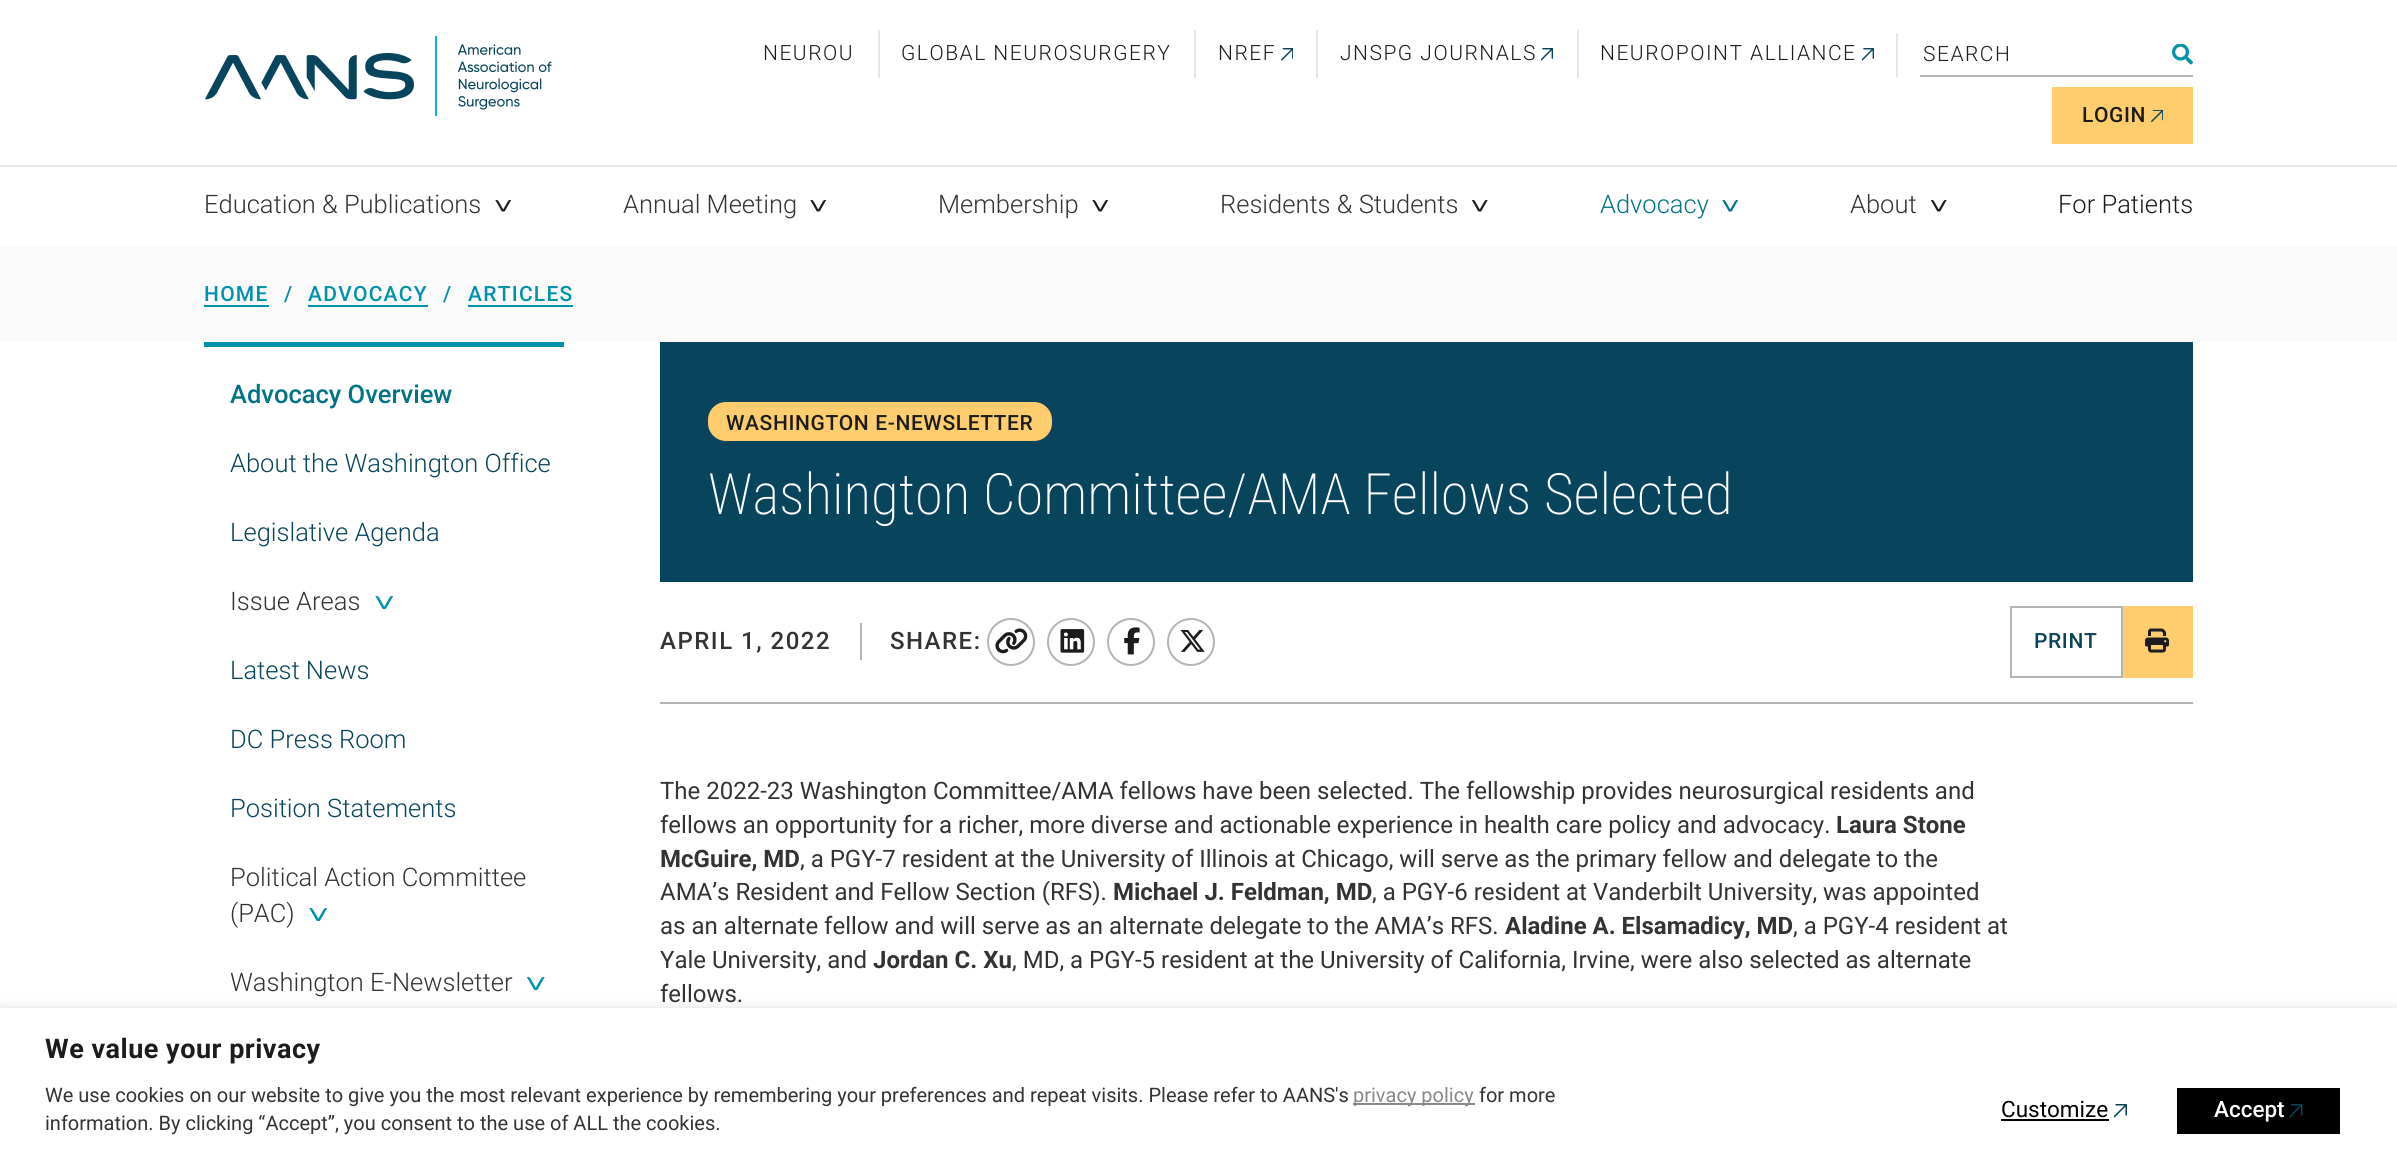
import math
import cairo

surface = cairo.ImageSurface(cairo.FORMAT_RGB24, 2397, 1160)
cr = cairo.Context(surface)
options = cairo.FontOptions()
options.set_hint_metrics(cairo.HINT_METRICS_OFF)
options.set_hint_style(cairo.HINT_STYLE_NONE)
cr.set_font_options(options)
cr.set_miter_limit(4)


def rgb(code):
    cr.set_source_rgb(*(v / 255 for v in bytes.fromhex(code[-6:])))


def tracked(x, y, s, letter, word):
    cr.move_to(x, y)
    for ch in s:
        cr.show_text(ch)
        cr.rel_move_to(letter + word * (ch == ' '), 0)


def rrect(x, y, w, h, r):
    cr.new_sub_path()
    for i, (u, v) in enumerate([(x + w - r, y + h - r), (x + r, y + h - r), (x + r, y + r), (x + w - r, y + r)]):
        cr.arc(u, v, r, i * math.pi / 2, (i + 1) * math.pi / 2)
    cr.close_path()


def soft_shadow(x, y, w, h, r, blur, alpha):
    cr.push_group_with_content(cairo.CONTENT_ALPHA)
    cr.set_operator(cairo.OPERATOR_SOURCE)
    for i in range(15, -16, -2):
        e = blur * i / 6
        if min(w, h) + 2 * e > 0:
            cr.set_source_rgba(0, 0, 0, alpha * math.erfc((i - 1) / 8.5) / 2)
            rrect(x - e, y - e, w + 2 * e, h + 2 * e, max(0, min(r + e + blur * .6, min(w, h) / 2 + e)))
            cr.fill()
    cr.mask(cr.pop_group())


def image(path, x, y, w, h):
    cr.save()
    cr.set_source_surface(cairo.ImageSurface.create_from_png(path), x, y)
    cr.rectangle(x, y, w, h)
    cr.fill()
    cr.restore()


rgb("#ffffff")
cr.paint()
image("img/1.png", 205, 36, 347, 80)
rgb("#e6e6e6")
cr.rectangle(878, 30, 2, 48)
cr.fill()
cr.rectangle(1194, 30, 2, 48)
cr.fill()
image("img/2.png", 1281, 48, 12, 13)
cr.rectangle(1316, 30, 2, 48)
cr.fill()
image("img/3.png", 1541, 48, 13, 13)
cr.rectangle(1577, 30, 2, 48)
cr.fill()
image("img/4.png", 1862, 48, 12, 13)
cr.rectangle(1896, 33, 2, 44)
cr.fill()
rgb("#b4b4b4")
cr.rectangle(1920, 75, 273, 2)
cr.fill()
image("img/5.png", 2172, 44, 21, 21)
rgb("#ffcd6d")
cr.rectangle(2052, 87, 141, 57)
cr.fill()
image("img/6.png", 2151, 110, 12, 12)
image("img/7.png", 495, 200, 17, 12)
image("img/7.png", 810, 200, 17, 12)
image("img/7.png", 1092, 200, 17, 12)
image("img/8.png", 1472, 200, 16, 12)
image("img/9.png", 1722, 200, 17, 12)
image("img/8.png", 1931, 200, 16, 12)
for x, y, w, h, color in [
    (0, 165, 2397, 2, "#e6e6e6"),
    (0, 246, 2397, 96, "#fafafa"),
    (204, 305, 65, 2, "#0092a8"),
    (308, 305, 120, 2, "#0092a8"),
    (468, 305, 105, 2, "#0092a8"),
    (204, 342, 360, 5, "#0092a8"),
]:
    rgb(color)
    cr.rectangle(x, y, w, h)
    cr.fill()
image("img/10.png", 375, 596, 18, 13)
image("img/10.png", 309, 908, 18, 13)
image("img/11.png", 527, 977, 18, 13)
rgb("#08445c")
cr.rectangle(660, 342, 1533, 240)
cr.fill()
rgb("#ffcd6d")
rrect(708, 402, 344, 39, 18)
cr.fill()
rgb("#b4b4b4")
cr.rectangle(660, 702, 1533, 2)
cr.fill()
cr.rectangle(860, 623, 2, 37)
cr.fill()
cr.arc(1011, 642, 23, 0, 2 * math.pi)
cr.stroke()
image("img/12.png", 995, 628, 33, 26)
cr.arc(1071, 642, 23, 0, 2 * math.pi)
cr.stroke()
image("img/13.png", 1060, 629, 25, 24)
cr.arc(1131, 642, 23, 0, 2 * math.pi)
cr.stroke()
image("img/14.png", 1124, 627, 16, 28)
cr.arc(1191, 642, 23, 0, 2 * math.pi)
cr.stroke()
image("img/15.png", 1180, 629, 25, 23)
cr.rectangle(2011, 607, 181, 70)
cr.stroke()
rgb("#ffcd6d")
cr.rectangle(2123, 606, 70, 72)
cr.fill()
rgb("#b4b4b4")
cr.rectangle(2121, 606, 2, 72)
cr.fill()
image("img/16.png", 2145, 628, 24, 25)
rgb("#000000")
soft_shadow(0, 1016, 2397, 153, 0, 7.5, 0.5)
for x, y, w, h, color in [
    (0, 1008, 2397, 152, "#ffffff"),
    (1353, 1103, 122, 2, "#898888"),
    (2001, 1119, 108, 2, "#000000"),
]:
    rgb(color)
    cr.rectangle(x, y, w, h)
    cr.fill()
image("img/17.png", 2114, 1104, 13, 14)
cr.rectangle(2177, 1088, 163, 46)
cr.fill()
image("img/18.png", 2289, 1104, 14, 14)
cr.select_font_face("Roboto Light")
cr.set_font_size(21)
rgb("#1c1c1c")
for x, y, s in [
    (763, 60, "NEUROU"),
    (901, 60, "GLOBAL NEUROSURGERY"),
    (1218, 60, "NREF"),
    (1340, 60, "JNSPG JOURNALS"),
    (1600, 60, "NEUROPOINT ALLIANCE"),
    (1923, 61, "SEARCH"),
]:
    tracked(x, y, s, 1.5, 0)
cr.select_font_face("Roboto Medium")
tracked(2082, 122, "LOGIN", 0.6, 0)
cr.select_font_face("Roboto Light")
cr.set_font_size(25.5)
rgb("#333333")
for x, y, s in [
    (204, 213, "Education & Publications"),
    (623, 213, "Annual Meeting"),
    (938, 213, "Membership"),
    (1220, 213, "Residents & Students"),
]:
    cr.move_to(x, y)
    cr.show_text(s)
rgb("#007385")
cr.move_to(1600, 213)
cr.show_text("Advocacy")
rgb("#333333")
cr.move_to(1850, 213)
cr.show_text("About")
rgb("#1c1c1c")
cr.move_to(2058, 213)
cr.show_text("For Patients")
cr.select_font_face("Roboto Medium")
cr.set_font_size(21)
rgb("#0092a8")
for x, y, s in [
    (204, 301, "HOME"),
    (284, 301, "/"),
    (308, 301, "ADVOCACY"),
    (443, 301, "/"),
    (468, 301, "ARTICLES"),
]:
    tracked(x, y, s, 1.25, 0)
cr.set_font_size(25.5)
rgb("#007385")
cr.move_to(230, 403)
cr.show_text("Advocacy Overview")
cr.select_font_face("Roboto Light")
rgb("#08445c")
cr.move_to(230, 472)
cr.show_text("About the Washington Office")
cr.move_to(230, 541)
cr.show_text("Legislative Agenda")
rgb("#333333")
cr.move_to(230, 610)
cr.show_text("Issue Areas")
rgb("#08445c")
for x, y, s in [
    (230, 679, "Latest News"),
    (230, 748, "DC Press Room"),
    (230, 817, "Position Statements"),
]:
    cr.move_to(x, y)
    cr.show_text(s)
rgb("#333333")
for x, y, s in [
    (230, 886, "Political Action Committee"),
    (230, 922, "(PAC)"),
    (230, 991, "Washington E-Newsletter"),
]:
    cr.move_to(x, y)
    cr.show_text(s)
cr.select_font_face("Roboto Medium")
cr.set_font_size(21)
rgb("#1c1c1c")
tracked(726, 430, "WASHINGTON E-NEWSLETTER", 0.6, 0)
cr.select_font_face("Roboto Condensed ExtraLight")
cr.set_font_size(57)
rgb("#ffffff")
cr.move_to(708, 514)
cr.show_text("Washington Committee/AMA Fellows Selected")
cr.select_font_face("Roboto Medium")
cr.set_font_size(24)
rgb("#333333")
tracked(660, 649, "APRIL 1, 2022", 1.5, 0)
tracked(890, 649, "SHARE:", 1.5, 0)
cr.set_font_size(21)
rgb("#08445c")
tracked(2034, 648, "PRINT", 0.6, 0)
cr.select_font_face("Roboto")
cr.set_font_size(24)
rgb("#333333")
cr.move_to(660, 799)
cr.show_text("The 2022-23 Washington Committee/AMA fellows have been selected. The fellowship provides neurosurgical residents and")
cr.move_to(660, 833)
cr.show_text("fellows an opportunity for a richer, more diverse and actionable experience in health care policy and advocacy.")
cr.select_font_face("Roboto", cairo.FONT_SLANT_NORMAL, cairo.FONT_WEIGHT_BOLD)
cr.move_to(1836, 833)
cr.show_text("Laura Stone")
cr.move_to(660, 867)
cr.show_text("McGuire, MD")
cr.select_font_face("Roboto")
cr.move_to(800, 867)
cr.show_text(", a PGY-7 resident at the University of Illinois at Chicago, will serve as the primary fellow and delegate to the")
cr.move_to(660, 900)
cr.show_text("AMA’s Resident and Fellow Section (RFS).")
cr.select_font_face("Roboto", cairo.FONT_SLANT_NORMAL, cairo.FONT_WEIGHT_BOLD)
cr.move_to(1113, 900)
cr.show_text("Michael J. Feldman, MD")
cr.select_font_face("Roboto")
cr.move_to(1372, 900)
cr.show_text(", a PGY-6 resident at Vanderbilt University, was appointed")
cr.move_to(660, 934)
cr.show_text("as an alternate fellow and will serve as an alternate delegate to the AMA’s RFS.")
cr.select_font_face("Roboto", cairo.FONT_SLANT_NORMAL, cairo.FONT_WEIGHT_BOLD)
cr.move_to(1505, 934)
cr.show_text("Aladine A. Elsamadicy, MD")
cr.select_font_face("Roboto")
cr.move_to(1793, 934)
cr.show_text(", a PGY-4 resident at")
cr.move_to(660, 968)
cr.show_text("Yale University, and")
cr.select_font_face("Roboto", cairo.FONT_SLANT_NORMAL, cairo.FONT_WEIGHT_BOLD)
cr.move_to(873, 968)
cr.show_text("Jordan C. Xu")
cr.select_font_face("Roboto")
cr.move_to(1012, 968)
cr.show_text(", MD, a PGY-5 resident at the University of California, Irvine, were also selected as alternate")
cr.move_to(660, 1002)
cr.show_text("fellows.")
cr.select_font_face("Roboto", cairo.FONT_SLANT_NORMAL, cairo.FONT_WEIGHT_BOLD)
cr.set_font_size(27)
rgb("#1c1c1c")
tracked(45, 1058, "We value your privacy", 0.5, 0)
cr.select_font_face("Roboto")
cr.set_font_size(20)
rgb("#333333")
cr.move_to(45, 1102)
cr.show_text("We use cookies on our website to give you the most relevant experience by remembering your preferences and repeat visits. Please refer to AANS's")
rgb("#898888")
cr.move_to(1353, 1102)
cr.show_text("privacy policy")
rgb("#333333")
cr.move_to(1479, 1102)
cr.show_text("for more")
cr.move_to(45, 1130)
cr.show_text("information. By clicking “Accept”, you consent to the use of ALL the cookies.")
cr.set_font_size(22.5)
rgb("#000000")
cr.move_to(2001, 1117)
cr.show_text("Customize")
cr.select_font_face("Roboto Medium")
rgb("#ffffff")
cr.move_to(2214, 1117)
cr.show_text("Accept")
surface.write_to_png("page.png")
